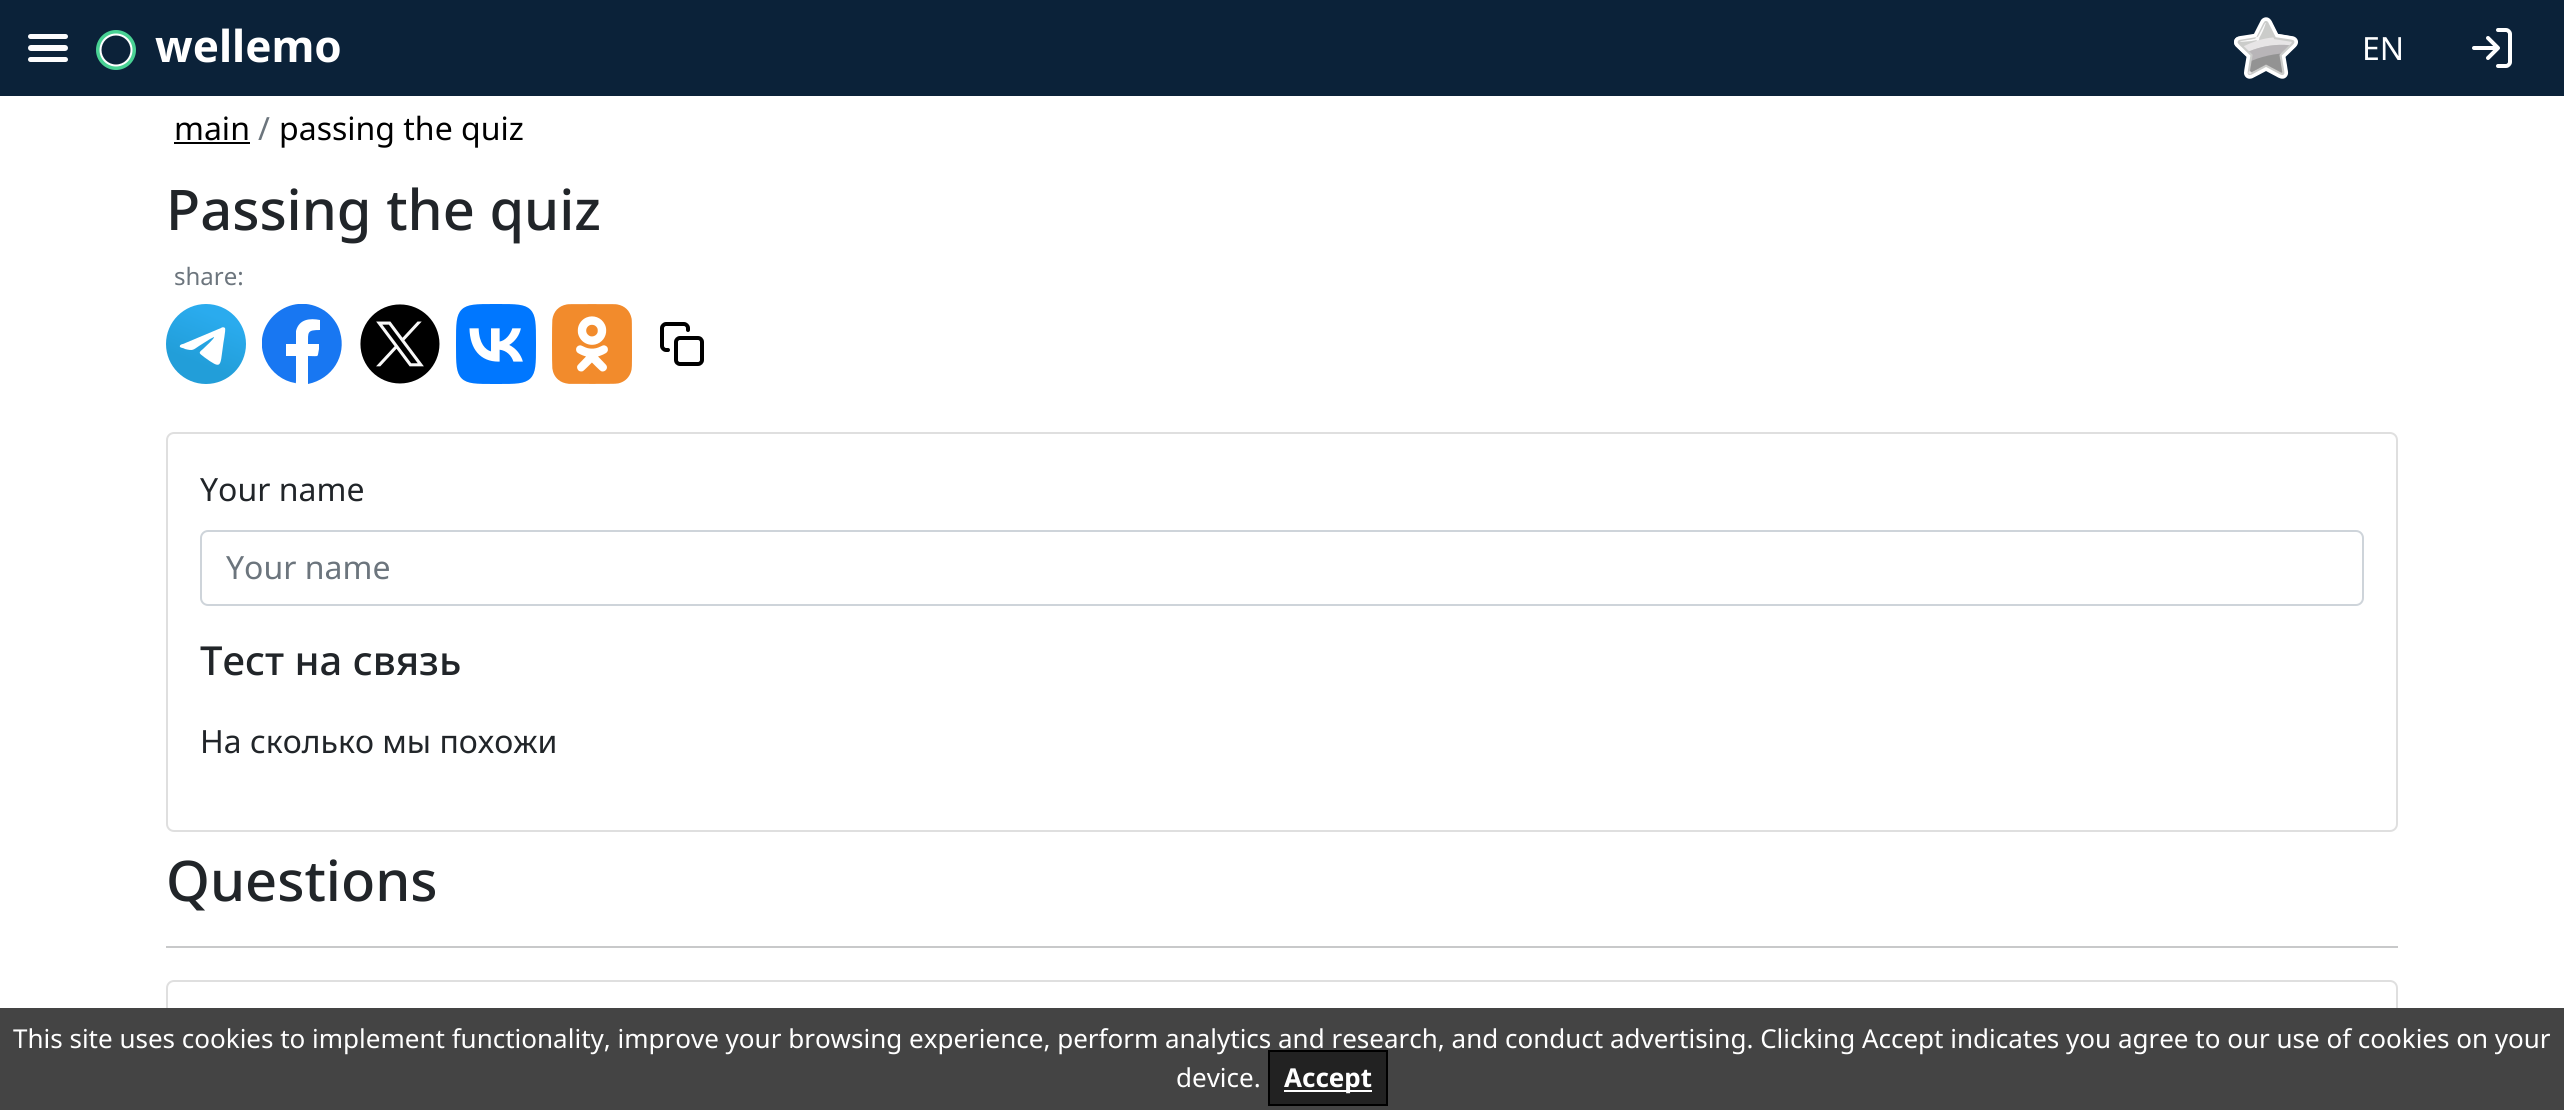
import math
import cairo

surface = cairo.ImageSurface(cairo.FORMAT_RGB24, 2564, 1110)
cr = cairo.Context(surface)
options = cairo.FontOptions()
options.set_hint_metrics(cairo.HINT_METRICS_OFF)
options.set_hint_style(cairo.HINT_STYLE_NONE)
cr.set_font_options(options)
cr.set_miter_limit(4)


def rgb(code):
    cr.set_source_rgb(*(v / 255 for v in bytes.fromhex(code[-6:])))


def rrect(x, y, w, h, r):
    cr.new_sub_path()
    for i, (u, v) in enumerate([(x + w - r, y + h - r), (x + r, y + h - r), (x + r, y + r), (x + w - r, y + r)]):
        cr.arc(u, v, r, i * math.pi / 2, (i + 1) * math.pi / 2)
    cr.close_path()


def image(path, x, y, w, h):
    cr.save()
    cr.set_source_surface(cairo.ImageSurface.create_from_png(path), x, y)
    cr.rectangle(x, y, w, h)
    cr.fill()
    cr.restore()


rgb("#ffffff")
cr.paint()
rgb("#0b2239")
cr.rectangle(0, 0, 2564, 96)
cr.fill()
rgb("#fcfcfd")
rrect(28, 34, 40, 5, 2.5)
cr.fill()
rrect(28, 45, 40, 6, 3)
cr.fill()
rrect(28, 57, 40, 5, 2.5)
cr.fill()
rgb("#49d294")
cr.arc(116, 50, 20, 0, 2 * math.pi)
cr.fill()
rgb("#ffffff")
cr.arc(116, 50, 16.5, 0, 2 * math.pi)
cr.fill()
rgb("#0c2239")
cr.arc(116, 50, 14.5, 0, 2 * math.pi)
cr.fill()
image("img/1.png", 2234, 17, 64, 62)
cr.new_path()
cr.move_to(2498, 30)
cr.line_to(2506, 30)
cr.curve_to(2508, 30, 2510, 32, 2510, 34)
cr.line_to(2510, 62)
cr.curve_to(2510, 64, 2508, 66, 2506, 66)
cr.line_to(2498, 66)
cr.move_to(2488, 58)
cr.line_to(2498, 48)
cr.line_to(2488, 38)
cr.move_to(2498, 48)
cr.line_to(2474, 48)
rgb("#ffffff")
cr.set_line_width(4)
cr.set_line_cap(cairo.LINE_CAP_ROUND)
cr.set_line_join(cairo.LINE_JOIN_ROUND)
cr.stroke()
rgb("#000000")
cr.rectangle(174, 142, 76, 2)
cr.fill()
gradient = cairo.LinearGradient(219, 317, 200, 364)
gradient.add_color_stop_rgba(0, 0.165, 0.671, 0.933, 1)
gradient.add_color_stop_rgba(1, 0.133, 0.62, 0.851, 1)
cr.set_source(gradient)
cr.arc(206, 344, 40, 0, 2 * math.pi)
cr.fill()
cr.save()
cr.rectangle(262, 304, 80, 80)
cr.clip()
rgb("#1877f2")
cr.new_path()
cr.move_to(295, 383)
cr.curve_to(283, 381, 272, 373, 266, 361)
cr.curve_to(248, 324, 291, 288, 325, 311)
cr.curve_to(332, 316, 338, 324, 340, 332)
cr.curve_to(347, 356, 332, 379, 308, 384)
cr.line_to(308, 356)
cr.curve_to(320, 356, 317, 358, 319, 349)
cr.line_to(319, 344)
cr.line_to(308, 344)
cr.curve_to(308, 332, 307, 330, 320, 330)
cr.line_to(320, 320)
cr.curve_to(310, 318, 299, 319, 296, 331)
cr.line_to(296, 344)
cr.line_to(286, 344)
cr.line_to(286, 356)
cr.line_to(296, 356)
cr.line_to(296, 381)
cr.curve_to(296, 382, 296, 384, 295, 383)
cr.close_path()
cr.fill()
cr.restore()
image("img/2.png", 360, 304, 80, 80)
image("img/3.png", 456, 304, 80, 80)
image("img/4.png", 552, 304, 80, 80)
rrect(676, 338, 26, 26, 4)
rgb("#000000")
cr.set_line_cap(cairo.LINE_CAP_BUTT)
cr.set_line_join(cairo.LINE_JOIN_MITER)
cr.stroke()
cr.new_path()
cr.move_to(668, 350)
cr.line_to(666, 350)
cr.curve_to(664, 350, 662, 348, 662, 346)
cr.line_to(662, 328)
cr.curve_to(662, 326, 664, 324, 666, 324)
cr.line_to(684, 324)
cr.curve_to(686, 324, 688, 326, 688, 328)
cr.line_to(688, 330)
cr.set_line_cap(cairo.LINE_CAP_ROUND)
cr.set_line_join(cairo.LINE_JOIN_ROUND)
cr.stroke()
rgb("#ffffff")
cr.new_path()
cr.move_to(221, 328)
cr.curve_to(222, 327, 224, 327, 225, 328)
cr.curve_to(226, 330, 223, 344, 223, 346)
cr.curve_to(220, 367, 222, 370, 204, 357)
cr.curve_to(199, 353, 198, 353, 203, 349)
cr.curve_to(205, 347, 215, 338, 214, 337)
cr.line_to(210, 339)
cr.line_to(199, 346)
cr.curve_to(193, 350, 193, 351, 185, 349)
cr.curve_to(184, 348, 181, 348, 180, 347)
cr.curve_to(179, 345, 182, 344, 183, 344)
cr.close_path()
cr.fill()
rrect(167, 433, 2230, 398, 7)
rgb("#dfdfdf")
cr.set_line_width(2)
cr.set_line_cap(cairo.LINE_CAP_BUTT)
cr.set_line_join(cairo.LINE_JOIN_MITER)
cr.stroke()
rrect(201, 531, 2162, 74, 7)
rgb("#ced4da")
cr.stroke()
rgb("#c8c9ca")
cr.rectangle(166, 946, 2232, 2)
cr.fill()
rrect(167, 981, 2230, 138, 7)
rgb("#dfdfdf")
cr.stroke()
rgb("#444444")
cr.rectangle(0, 1008, 2564, 102)
cr.fill()
cr.select_font_face("Noto Sans", cairo.FONT_SLANT_NORMAL, cairo.FONT_WEIGHT_BOLD)
cr.set_font_size(44)
rgb("#ffffff")
cr.move_to(155, 62)
cr.show_text("wellemo")
cr.select_font_face("Noto Sans")
cr.set_font_size(32)
cr.move_to(2362, 60)
cr.show_text("EN")
rgb("#000000")
cr.move_to(174, 140)
cr.show_text("main")
rgb("#6c757d")
cr.move_to(258, 140)
cr.show_text("/")
rgb("#000000")
cr.move_to(279, 140)
cr.show_text("passing the quiz")
cr.select_font_face("Noto Sans Medium")
cr.set_font_size(56)
rgb("#212529")
cr.move_to(166, 230)
cr.show_text("Passing the quiz")
cr.select_font_face("Noto Sans")
cr.set_font_size(24)
rgb("#6c757d")
cr.move_to(174, 285)
cr.show_text("share:")
cr.set_font_size(32)
rgb("#212529")
cr.move_to(200, 501)
cr.show_text("Your name")
rgb("#6c757d")
cr.move_to(226, 579)
cr.show_text("Your name")
cr.select_font_face("Noto Sans Medium")
cr.set_font_size(40)
rgb("#212529")
cr.move_to(200, 675)
cr.show_text("Тест на связь")
cr.select_font_face("Noto Sans")
cr.set_font_size(32)
cr.move_to(200, 753)
cr.show_text("На сколько мы похожи")
cr.select_font_face("Noto Sans Medium")
cr.set_font_size(56)
cr.move_to(166, 901)
cr.show_text("Questions")
cr.select_font_face("Noto Sans")
cr.set_font_size(26)
rgb("#ffffff")
cr.move_to(13, 1048)
cr.show_text("This site uses cookies to implement functionality, improve your browsing experience, perform analytics and research, and conduct advertising. Clicking Accept indicates you agree to our use of cookies on your")
cr.move_to(1176, 1087)
cr.show_text("device.")
rgb("#222222")
cr.rectangle(1269, 1051, 118, 54)
cr.fill_preserve()
rgb("#000000")
cr.stroke()
rgb("#ffffff")
cr.rectangle(1284, 1090, 88, 2)
cr.fill()
cr.select_font_face("Noto Sans", cairo.FONT_SLANT_NORMAL, cairo.FONT_WEIGHT_BOLD)
cr.move_to(1284, 1087)
cr.show_text("Accept")
surface.write_to_png("page.png")
